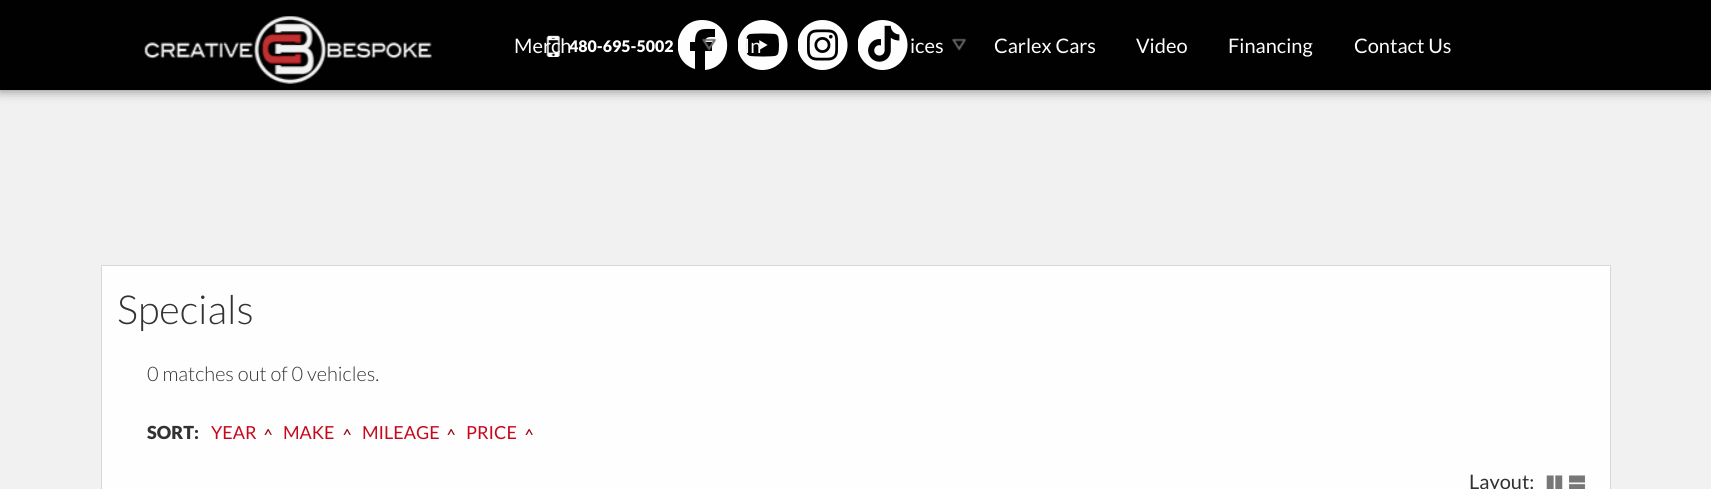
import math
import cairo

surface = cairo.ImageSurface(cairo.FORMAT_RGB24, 1711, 489)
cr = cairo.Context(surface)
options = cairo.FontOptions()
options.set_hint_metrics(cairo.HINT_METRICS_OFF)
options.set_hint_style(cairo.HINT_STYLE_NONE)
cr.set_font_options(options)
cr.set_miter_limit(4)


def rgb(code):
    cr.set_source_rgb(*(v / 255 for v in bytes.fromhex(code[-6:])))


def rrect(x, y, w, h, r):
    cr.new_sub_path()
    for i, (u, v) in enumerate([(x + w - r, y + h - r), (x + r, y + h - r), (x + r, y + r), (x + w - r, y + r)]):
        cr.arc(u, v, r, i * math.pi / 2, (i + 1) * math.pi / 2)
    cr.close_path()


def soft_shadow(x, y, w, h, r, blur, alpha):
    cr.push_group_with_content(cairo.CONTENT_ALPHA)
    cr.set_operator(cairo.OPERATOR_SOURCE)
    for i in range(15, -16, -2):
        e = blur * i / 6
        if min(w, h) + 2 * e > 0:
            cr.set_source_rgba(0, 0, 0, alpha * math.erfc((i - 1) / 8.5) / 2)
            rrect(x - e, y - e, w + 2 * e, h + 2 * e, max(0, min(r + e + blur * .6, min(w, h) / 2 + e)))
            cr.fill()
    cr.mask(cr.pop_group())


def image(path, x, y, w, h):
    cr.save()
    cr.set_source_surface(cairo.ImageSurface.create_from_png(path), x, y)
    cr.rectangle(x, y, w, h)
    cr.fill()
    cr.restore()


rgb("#f1f1f1")
cr.paint()
rgb("#000000")
soft_shadow(0, 0, 1711, 90, 0, 6, 0.5)
rgb("#010101")
cr.rectangle(0, 0, 1711, 90)
cr.fill()
cr.save()
cr.rectangle(678, 20, 50, 50)
cr.clip()
rgb("#fefefe")
cr.new_path()
cr.move_to(702, 20)
cr.curve_to(674, 20, 668, 61, 695, 69)
cr.line_to(695, 51)
cr.line_to(690, 51)
cr.line_to(690, 42)
cr.line_to(695, 42)
cr.curve_to(695, 27, 703, 29, 715, 29)
cr.line_to(715, 37)
cr.curve_to(711, 37, 705, 36, 705, 42)
cr.line_to(712, 42)
cr.line_to(712, 51)
cr.line_to(705, 51)
cr.line_to(705, 70)
cr.curve_to(736, 67, 734, 20, 702, 20)
cr.close_path()
cr.fill()
cr.restore()
image("img/1.png", 702, 38, 15, 13)
image("img/2.png", 952, 38, 15, 13)
image("img/3.png", 144, 16, 288, 68)
image("img/4.png", 546, 35, 15, 22)
image("img/5.png", 738, 20, 50, 50)
image("img/6.png", 798, 20, 50, 50)
image("img/7.png", 858, 20, 50, 50)
rgb("#fefefe")
cr.rectangle(101.5, 265.5, 1509, 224)
cr.fill_preserve()
rgb("#d8d8d8")
cr.set_line_width(1)
cr.stroke()
image("img/8.png", 1546, 475, 17, 14)
image("img/9.png", 1569, 475, 17, 14)
cr.select_font_face("Lato")
cr.set_font_size(20)
rgb("#fefefe")
for x, y, s in [
    (744, 53, "In"),
    (910, 53, "ices"),
    (994, 53, "Carlex Cars"),
    (1136, 53, "Video"),
    (1228, 53, "Financing"),
    (1354, 53, "Contact Us"),
]:
    cr.move_to(x, y)
    cr.show_text(s)
cr.select_font_face("Lato Black")
cr.set_font_size(16)
cr.move_to(569, 52)
cr.show_text("480-695-5002")
cr.select_font_face("Lato")
cr.set_font_size(20)
cr.move_to(514, 53)
cr.show_text("Merch")
cr.select_font_face("Lato Light")
cr.set_font_size(40)
rgb("#323232")
cr.move_to(117, 324)
cr.show_text("Specials")
cr.set_font_size(20)
cr.move_to(147, 381)
cr.show_text("0 matches out of 0 vehicles.")
cr.select_font_face("Lato Black")
cr.set_font_size(18)
cr.move_to(147, 439)
cr.show_text("SORT:")
cr.select_font_face("Lato")
rgb("#c7081b")
cr.move_to(211, 439)
cr.show_text("YEAR")
rgb("#960614")
cr.move_to(263, 442)
cr.show_text("^")
rgb("#c7081b")
cr.move_to(283, 439)
cr.show_text("MAKE")
rgb("#960614")
cr.move_to(342, 442)
cr.show_text("^")
rgb("#c7081b")
cr.move_to(362, 439)
cr.show_text("MILEAGE")
rgb("#960614")
cr.move_to(446, 442)
cr.show_text("^")
rgb("#c7081b")
cr.move_to(466, 439)
cr.show_text("PRICE")
rgb("#960614")
cr.move_to(524, 442)
cr.show_text("^")
cr.set_font_size(20)
rgb("#323232")
cr.move_to(1469, 489)
cr.show_text("Layout:")
surface.write_to_png("page.png")
